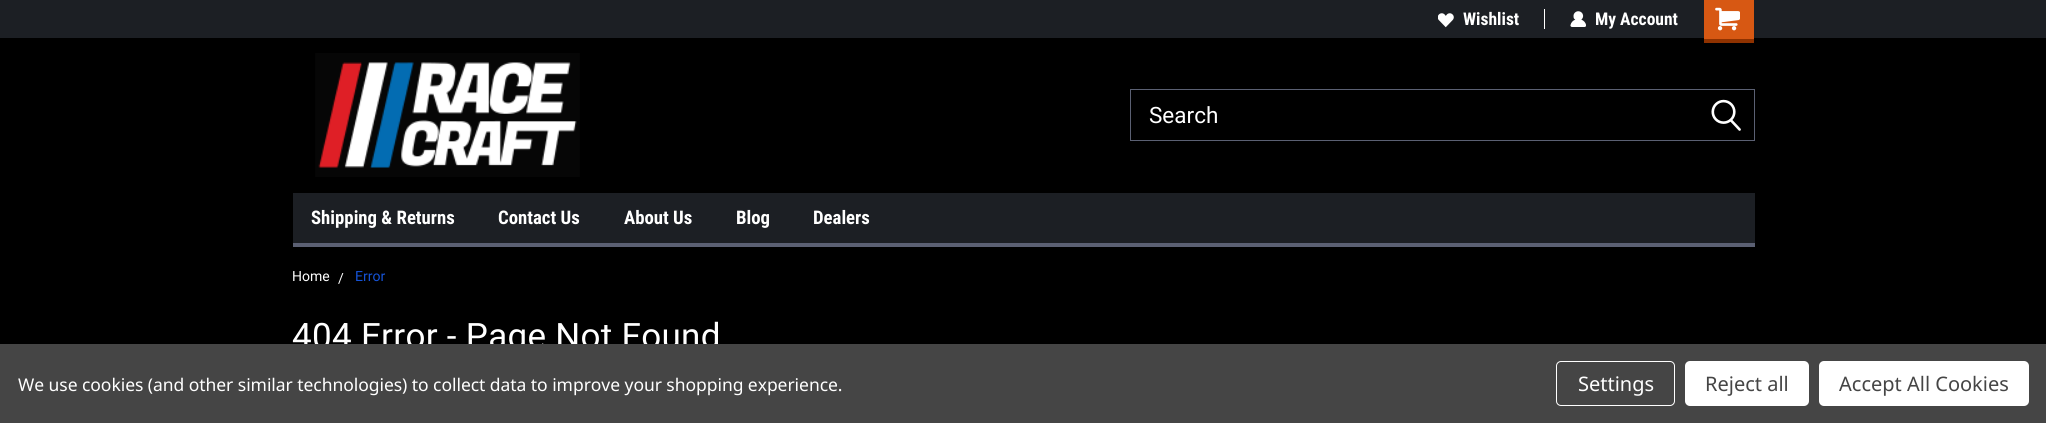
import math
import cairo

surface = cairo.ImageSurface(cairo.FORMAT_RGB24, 2046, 423)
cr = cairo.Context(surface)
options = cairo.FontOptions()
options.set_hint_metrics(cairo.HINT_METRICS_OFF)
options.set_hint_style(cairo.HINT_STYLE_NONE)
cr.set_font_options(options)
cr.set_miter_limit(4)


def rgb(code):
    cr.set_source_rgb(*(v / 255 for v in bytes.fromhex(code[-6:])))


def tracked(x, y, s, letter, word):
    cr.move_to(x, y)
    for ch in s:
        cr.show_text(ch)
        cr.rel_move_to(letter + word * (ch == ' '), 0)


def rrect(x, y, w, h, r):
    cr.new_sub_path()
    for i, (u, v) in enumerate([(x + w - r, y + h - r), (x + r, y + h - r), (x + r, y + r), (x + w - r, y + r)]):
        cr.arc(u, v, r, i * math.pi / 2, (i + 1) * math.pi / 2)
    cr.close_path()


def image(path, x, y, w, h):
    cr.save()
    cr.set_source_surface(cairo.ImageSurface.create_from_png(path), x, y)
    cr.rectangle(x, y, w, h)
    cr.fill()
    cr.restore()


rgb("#000000")
cr.paint()
rgb("#1c1f24")
cr.rectangle(0, 0, 2046, 38)
cr.fill()
rgb("#ffffff")
cr.rectangle(1544, 9, 1, 20)
cr.fill()
image("img/1.png", 1438, 13, 16, 15)
image("img/2.png", 1570, 11, 16, 16)
rgb("#d75813")
cr.rectangle(1704, 0, 50, 39)
cr.fill()
rgb("#8f3200")
cr.rectangle(1704, 39, 50, 4)
cr.fill()
image("img/3.png", 1715, 7, 25, 24)
image("img/4.png", 315, 53, 265, 124)
cr.rectangle(1130.5, 89.5, 624, 51)
rgb("#5b6073")
cr.set_line_width(1)
cr.stroke()
image("img/5.png", 1711, 99, 30, 32)
rgb("#1c1f24")
cr.rectangle(293, 193, 1462, 50)
cr.fill()
rgb("#5b6073")
cr.rectangle(293, 243, 1462, 4)
cr.fill()
cr.select_font_face("Roboto Condensed", cairo.FONT_SLANT_NORMAL, cairo.FONT_WEIGHT_BOLD)
cr.set_font_size(17.5)
rgb("#ffffff")
cr.move_to(1463, 25)
cr.show_text("Wishlist")
cr.move_to(1595, 25)
cr.show_text("My Account")
cr.select_font_face("Roboto")
cr.set_font_size(22.5)
cr.move_to(1149, 123)
cr.show_text("Search")
cr.select_font_face("Roboto Condensed", cairo.FONT_SLANT_NORMAL, cairo.FONT_WEIGHT_BOLD)
cr.set_font_size(18.75)
for x, y, s in [
    (311, 224, "Shipping & Returns"),
    (498, 224, "Contact Us"),
    (624, 224, "About Us"),
    (736, 224, "Blog"),
    (813, 224, "Dealers"),
]:
    cr.move_to(x, y)
    cr.show_text(s)
cr.select_font_face("Roboto")
cr.set_font_size(14)
cr.move_to(292, 281)
cr.show_text("Home")
cr.move_to(338, 283)
cr.show_text("/")
rgb("#1553d7")
cr.move_to(355, 281)
cr.show_text("Error")
cr.set_font_size(35)
rgb("#ffffff")
tracked(292, 348, "404 Error - Page Not Found", 0.3, 0)
rgb("#454545")
cr.rectangle(0, 344, 2046, 79)
cr.fill()
cr.select_font_face("Noto Sans")
cr.set_font_size(17.5)
rgb("#ffffff")
tracked(18, 391, "We use cookies (and other similar technologies) to collect data to improve your shopping experience.", -0.05, 0)
rrect(1556.5, 361.5, 118, 44, 4.5)
cr.stroke()
cr.set_font_size(20)
cr.move_to(1578, 391)
cr.show_text("Settings")
rrect(1685, 361, 124, 45, 5)
cr.fill()
rgb("#454545")
cr.move_to(1705, 391)
cr.show_text("Reject all")
rgb("#ffffff")
rrect(1819, 361, 210, 45, 5)
cr.fill()
rgb("#454545")
cr.move_to(1839, 391)
cr.show_text("Accept All Cookies")
surface.write_to_png("page.png")
